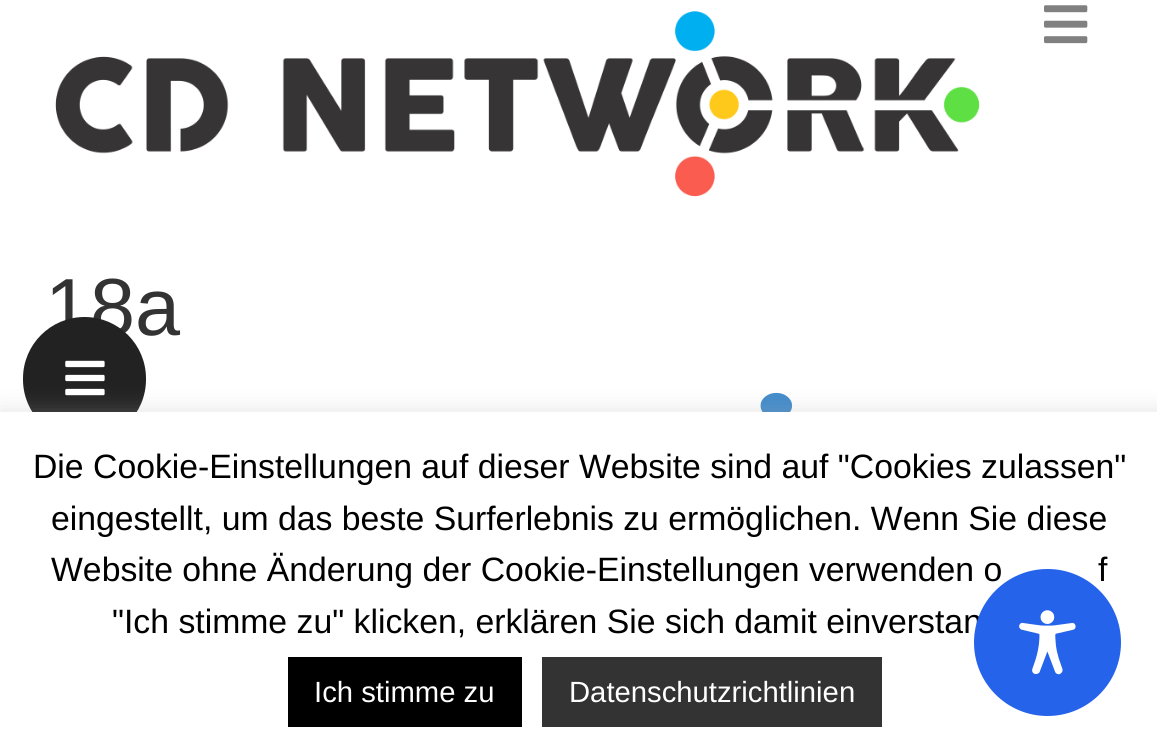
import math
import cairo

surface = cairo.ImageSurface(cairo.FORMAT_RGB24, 1157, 753)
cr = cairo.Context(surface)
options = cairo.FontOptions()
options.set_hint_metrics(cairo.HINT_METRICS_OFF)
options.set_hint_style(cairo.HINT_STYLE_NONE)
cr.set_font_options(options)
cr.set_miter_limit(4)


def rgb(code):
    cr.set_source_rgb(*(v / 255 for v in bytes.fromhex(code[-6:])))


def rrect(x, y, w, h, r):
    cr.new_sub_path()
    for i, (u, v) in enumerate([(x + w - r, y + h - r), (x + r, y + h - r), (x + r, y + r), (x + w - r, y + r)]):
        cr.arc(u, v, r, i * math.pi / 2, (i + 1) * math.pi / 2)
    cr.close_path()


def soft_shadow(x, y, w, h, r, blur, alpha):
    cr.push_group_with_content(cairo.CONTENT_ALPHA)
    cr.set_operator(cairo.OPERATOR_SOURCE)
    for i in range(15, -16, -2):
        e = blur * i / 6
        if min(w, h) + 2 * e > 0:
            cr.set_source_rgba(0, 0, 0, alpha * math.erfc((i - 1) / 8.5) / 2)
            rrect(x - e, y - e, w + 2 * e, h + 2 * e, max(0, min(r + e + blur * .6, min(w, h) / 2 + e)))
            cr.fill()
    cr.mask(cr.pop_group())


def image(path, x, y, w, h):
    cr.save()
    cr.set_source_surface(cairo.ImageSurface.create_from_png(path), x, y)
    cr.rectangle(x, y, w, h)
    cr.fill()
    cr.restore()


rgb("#ffffff")
cr.paint()
image("img/1.png", 55, 11, 925, 186)
image("img/2.png", 1044, 5, 44, 39)
image("img/3.png", 760, 392, 33, 20)
cr.select_font_face("Liberation Sans")
cr.set_font_size(81)
rgb("#333333")
cr.move_to(45, 335)
cr.show_text("18a")
rgb("#222222")
rrect(23, 317, 123, 124, 61.5)
cr.fill()
image("img/4.png", 65, 360, 40, 36)
rgb("#acabab")
soft_shadow(0, 410, 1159, 342, 0, 11, 0.3)
rgb("#ffffff")
cr.rectangle(0, 412, 1157, 341)
cr.fill()
cr.set_font_size(33.75)
rgb("#000000")
for x, y, s in [
    (33, 478, "Die Cookie-Einstellungen auf dieser Website sind auf \"Cookies zulassen\""),
    (51, 530, "eingestellt, um das beste Surferlebnis zu ermöglichen. Wenn Sie diese"),
    (51, 581, "Website ohne Änderung der Cookie-Einstellungen verwenden o"),
    (1098, 581, "f"),
    (112, 633, "\"Ich stimme zu\" klicken, erklären Sie sich damit einverstan"),
]:
    cr.move_to(x, y)
    cr.show_text(s)
cr.rectangle(288, 657, 234, 70)
cr.fill()
cr.set_font_size(29.25)
rgb("#ffffff")
cr.move_to(314, 702)
cr.show_text("Ich stimme zu")
rgb("#333333")
cr.rectangle(542, 657, 340, 70)
cr.fill()
rgb("#ffffff")
cr.move_to(569, 702)
cr.show_text("Datenschutzrichtlinien")
rgb("#2563eb")
cr.new_path()
cr.arc(1047.5, 642.5, 73.5, 0, 2 * math.pi)
cr.fill()
image("img/5.png", 1019, 610, 57, 65)
surface.write_to_png("page.png")
